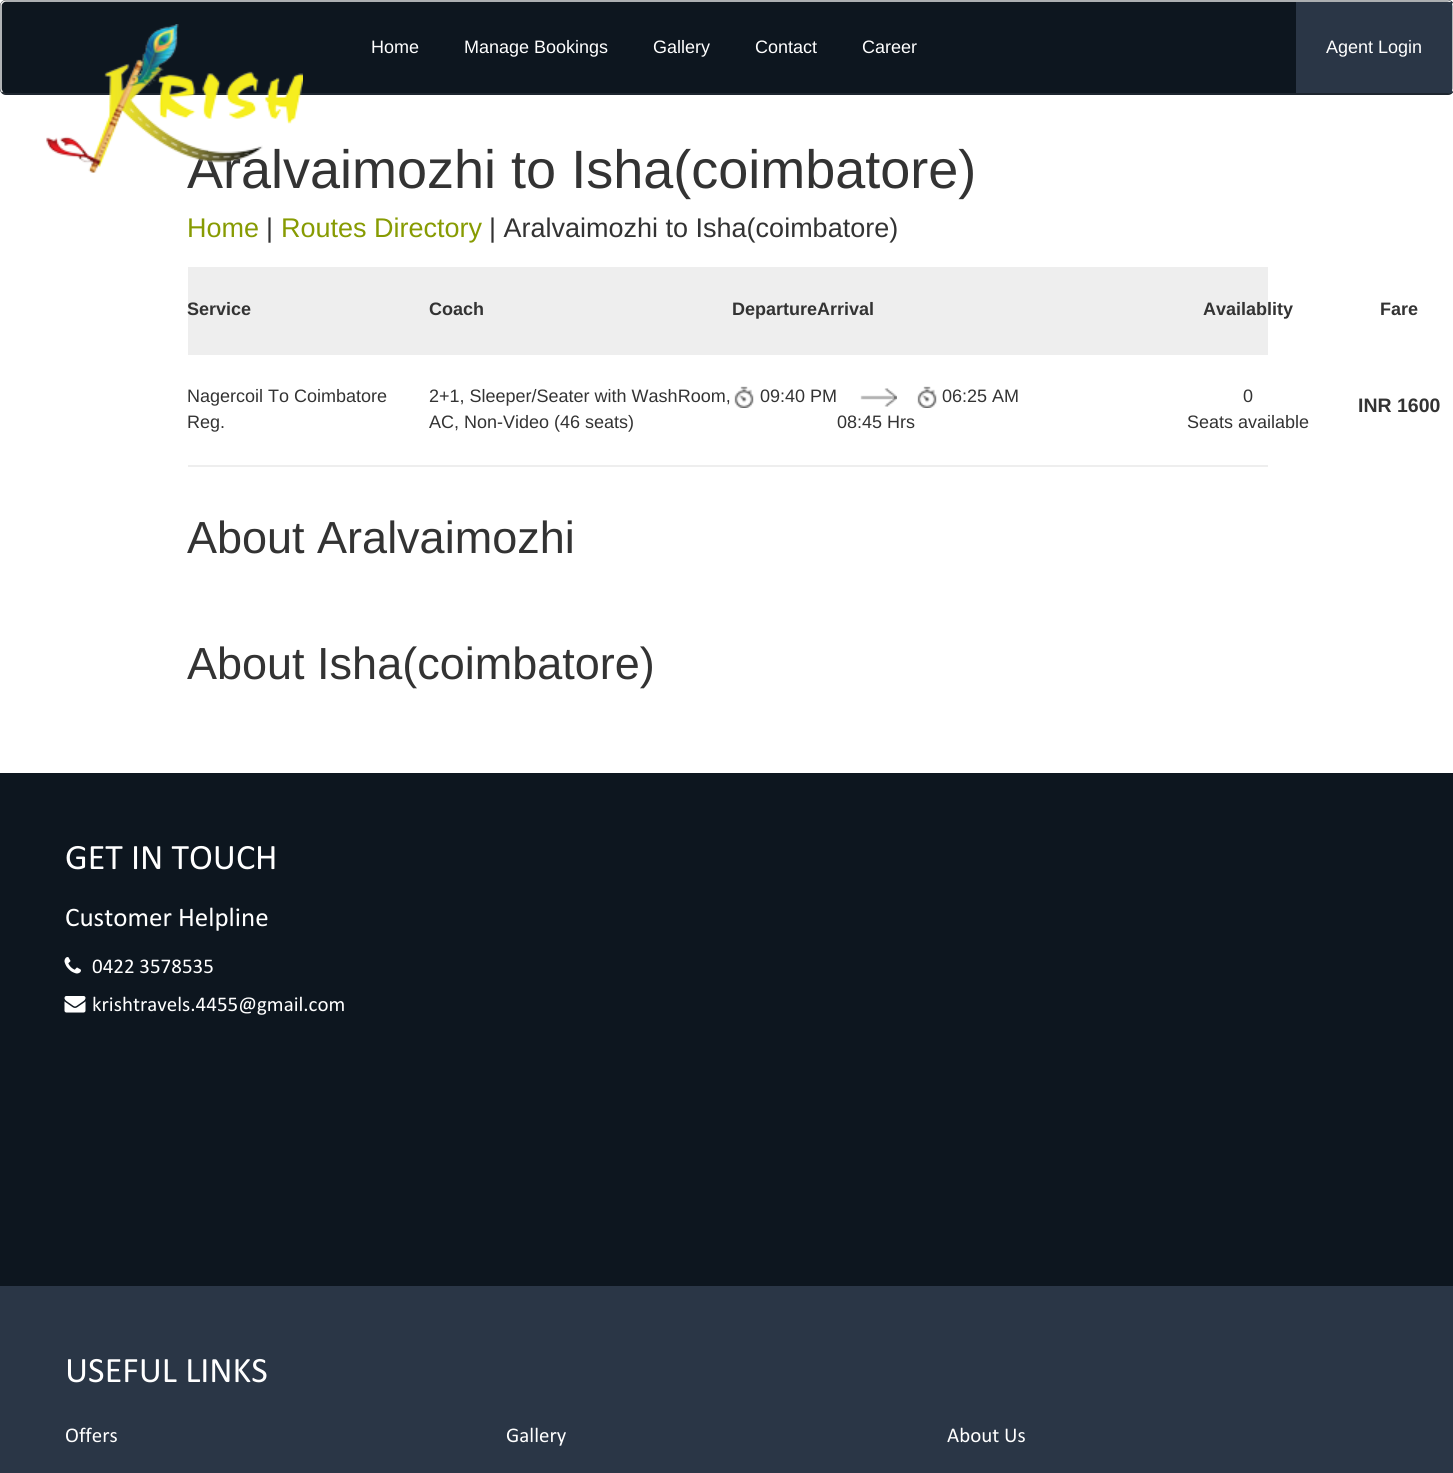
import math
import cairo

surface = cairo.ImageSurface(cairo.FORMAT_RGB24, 1453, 1473)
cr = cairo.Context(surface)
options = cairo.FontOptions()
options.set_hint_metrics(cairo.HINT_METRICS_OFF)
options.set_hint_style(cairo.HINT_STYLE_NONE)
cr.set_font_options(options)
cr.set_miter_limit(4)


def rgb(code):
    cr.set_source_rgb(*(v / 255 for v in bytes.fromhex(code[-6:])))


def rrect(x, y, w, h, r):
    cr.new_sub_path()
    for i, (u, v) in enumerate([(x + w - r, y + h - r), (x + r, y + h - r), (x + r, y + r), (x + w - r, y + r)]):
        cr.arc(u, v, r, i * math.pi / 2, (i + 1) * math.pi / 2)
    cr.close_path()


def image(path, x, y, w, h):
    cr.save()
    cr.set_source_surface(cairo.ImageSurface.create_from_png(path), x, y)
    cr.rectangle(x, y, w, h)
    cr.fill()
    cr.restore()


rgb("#ffffff")
cr.paint()
rgb("#0d161f")
rrect(0, 0, 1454, 95, 6)
cr.fill()
cr.new_path()
cr.move_to(1451, 92)
cr.curve_to(1450, 93, 1449, 94, 1447.5, 94)
cr.line_to(6, 94)
cr.curve_to(4.5, 94, 3.5, 93, 2.5, 92)
cr.set_source_rgba(1, 1, 1, 0.1)
cr.set_line_width(1.5)
cr.stroke()
cr.new_path()
cr.move_to(2.5, 92)
cr.curve_to(1.5, 91, 1, 90, 1, 88.5)
cr.line_to(1, 6)
cr.curve_to(1, 4.5, 1.5, 3.5, 2.5, 2.5)
cr.curve_to(3.5, 1.5, 4.5, 1, 6, 1)
cr.line_to(1447.5, 1)
cr.curve_to(1449, 1, 1450, 1.5, 1451, 2.5)
cr.curve_to(1452, 3.5, 1453, 4.5, 1453, 6)
cr.line_to(1453, 88.5)
cr.curve_to(1453, 90, 1452, 91, 1451, 92)
rgb("#e7e7e7")
cr.stroke()
for x, y, w, h, color in [
    (1296, 2, 156, 91, "#2a3646"),
    (188, 267, 1080, 88, "#eeeeee"),
    (188, 465, 1080, 2, "#eeeeee"),
]:
    rgb(color)
    cr.rectangle(x, y, w, h)
    cr.fill()
image("img/2.png", 734, 386, 20, 22)
image("img/3.png", 917, 386, 20, 22)
image("img/4.png", 860, 388, 37, 19)
rgb("#2a3646")
cr.rectangle(0, 1286, 1453, 187)
cr.fill()
rgb("#0d161f")
cr.rectangle(0, 773, 1453, 513)
cr.fill()
image("img/5.png", 64, 957, 17, 17)
image("img/6.png", 64, 996, 22, 17)
cr.select_font_face("Liberation Sans")
cr.set_font_size(18)
rgb("#ffffff")
for x, y, s in [
    (371, 53, "Home"),
    (464, 53, "Manage Bookings"),
    (653, 53, "Gallery"),
    (755, 53, "Contact"),
    (862, 53, "Career"),
    (1326, 53, "Agent Login"),
]:
    cr.move_to(x, y)
    cr.show_text(s)
cr.set_font_size(54)
rgb("#333333")
cr.move_to(187, 188)
cr.show_text("Aralvaimozhi to Isha(coimbatore)")
image("img/1.png", 46, 24, 257, 149)
cr.set_font_size(27)
rgb("#879b02")
cr.move_to(187, 237)
cr.show_text("Home")
rgb("#333333")
cr.move_to(266, 237)
cr.show_text("|")
rgb("#879b02")
cr.move_to(281, 237)
cr.show_text("Routes Directory")
rgb("#333333")
cr.move_to(489, 237)
cr.show_text("| Aralvaimozhi to Isha(coimbatore)")
cr.select_font_face("Liberation Sans", cairo.FONT_SLANT_NORMAL, cairo.FONT_WEIGHT_BOLD)
cr.set_font_size(18)
for x, y, s in [
    (187, 315, "Service"),
    (429, 315, "Coach"),
    (732, 315, "DepartureArrival"),
    (1203, 315, "Availablity"),
    (1380, 315, "Fare"),
]:
    cr.move_to(x, y)
    cr.show_text(s)
cr.select_font_face("Liberation Sans")
for x, y, s in [
    (187, 402, "Nagercoil To Coimbatore"),
    (187, 428, "Reg."),
    (429, 402, "2+1, Sleeper/Seater with WashRoom,"),
    (429, 428, "AC, Non-Video (46 seats)"),
    (760, 402, "09:40 PM"),
    (942, 402, "06:25 AM"),
    (837, 428, "08:45 Hrs"),
    (1243, 402, "0"),
    (1187, 428, "Seats available"),
]:
    cr.move_to(x, y)
    cr.show_text(s)
cr.select_font_face("Liberation Sans", cairo.FONT_SLANT_NORMAL, cairo.FONT_WEIGHT_BOLD)
cr.set_font_size(19.5)
cr.move_to(1358, 412)
cr.show_text("INR 1600")
cr.select_font_face("Liberation Sans")
cr.set_font_size(45)
cr.move_to(187, 553)
cr.show_text("About Aralvaimozhi")
cr.move_to(187, 679)
cr.show_text("About Isha(coimbatore)")
cr.select_font_face("Calibri")
cr.set_font_size(36)
rgb("#ffffff")
cr.move_to(65, 869)
cr.show_text("GET IN TOUCH")
cr.set_font_size(27)
cr.move_to(65, 926)
cr.show_text("Customer Helpline")
cr.set_font_size(21)
cr.move_to(92, 973)
cr.show_text("0422 3578535")
cr.move_to(92, 1011)
cr.show_text("krishtravels.4455@gmail.com")
cr.set_font_size(36)
cr.move_to(65, 1382)
cr.show_text("USEFUL LINKS")
cr.set_font_size(21)
for x, y, s in [
    (65, 1442, "Offers"),
    (506, 1442, "Gallery"),
    (947, 1442, "About Us"),
]:
    cr.move_to(x, y)
    cr.show_text(s)
surface.write_to_png("page.png")
